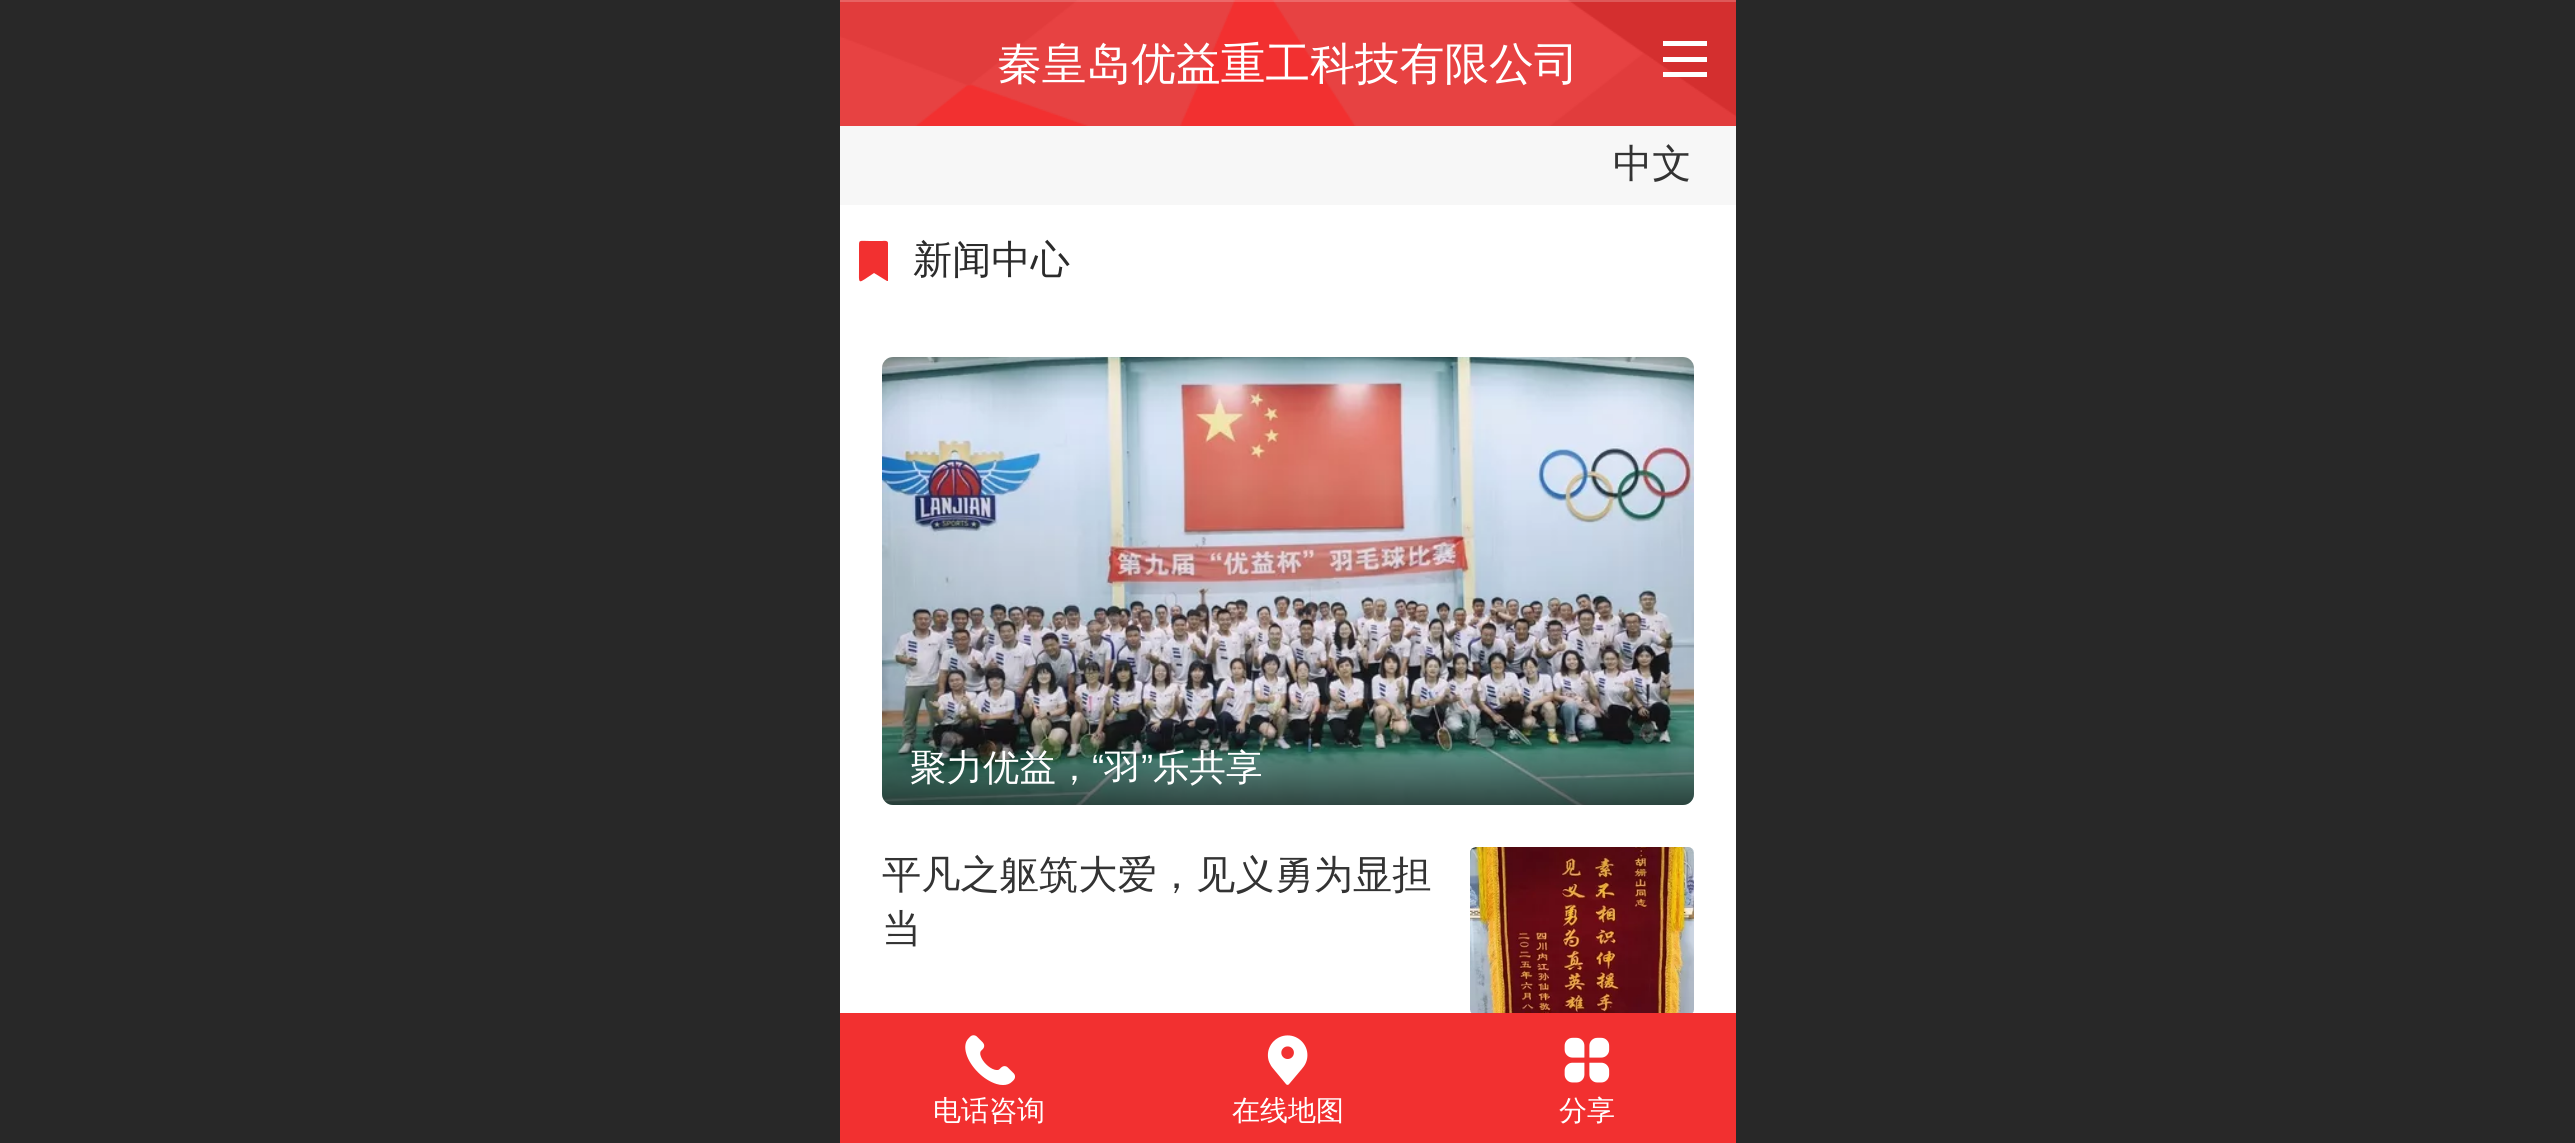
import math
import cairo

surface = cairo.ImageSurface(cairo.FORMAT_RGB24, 2575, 1143)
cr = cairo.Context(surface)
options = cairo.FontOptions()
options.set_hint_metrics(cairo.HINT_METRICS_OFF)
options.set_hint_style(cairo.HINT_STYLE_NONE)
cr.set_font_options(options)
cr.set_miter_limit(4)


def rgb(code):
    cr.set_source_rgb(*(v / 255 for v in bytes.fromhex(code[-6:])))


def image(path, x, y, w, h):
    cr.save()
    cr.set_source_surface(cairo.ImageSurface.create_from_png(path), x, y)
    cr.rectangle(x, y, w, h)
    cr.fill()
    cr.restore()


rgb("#ffffff")
cr.paint()
rgb("#282828")
cr.rectangle(0, 0, 840, 1143)
cr.fill()
rgb("#f23030")
cr.rectangle(840, 0, 896, 126)
cr.fill()
image("img/1.png", 840, 0, 896, 126)
cr.set_source_rgba(1, 1, 1, 0.2)
cr.rectangle(840, 0, 896, 2)
cr.fill()
rgb("#ffffff")
cr.new_path()
cr.move_to(1663, 41)
cr.line_to(1707, 41)
cr.line_to(1707, 46)
cr.line_to(1663, 46)
cr.close_path()
cr.move_to(1663, 57)
cr.line_to(1707, 57)
cr.line_to(1707, 62)
cr.line_to(1663, 62)
cr.close_path()
cr.move_to(1663, 72)
cr.line_to(1707, 72)
cr.line_to(1707, 77)
cr.line_to(1663, 77)
cr.close_path()
cr.fill()
rgb("#f7f7f7")
cr.rectangle(840, 126, 896, 79)
cr.fill()
rgb("#f23030")
cr.new_path()
cr.move_to(887, 281)
cr.line_to(874, 273)
cr.curve_to(857, 284, 859, 286, 859, 267)
cr.line_to(859, 249)
cr.curve_to(859, 239, 858, 241, 870, 241)
cr.line_to(882, 241)
cr.curve_to(883, 241, 888, 240, 888, 243)
cr.line_to(888, 281)
cr.close_path()
cr.fill()
image("img/2.png", 882, 357, 812, 448)
gradient = cairo.LinearGradient(1288, 728, 1288, 805)
gradient.add_color_stop_rgba(0, 0, 0, 0, 0)
gradient.add_color_stop_rgba(1, 0, 0, 0, 0.6)
cr.set_source(gradient)
cr.new_path()
cr.move_to(882, 728)
cr.line_to(1694, 728)
cr.line_to(1694, 794)
cr.curve_to(1694, 800, 1689, 805, 1683, 805)
cr.line_to(893, 805)
cr.curve_to(887, 805, 882, 800, 882, 794)
cr.close_path()
cr.fill()
image("img/3.png", 1470, 847, 224, 166)
rgb("#f23030")
cr.rectangle(840, 1013, 896, 130)
cr.fill()
image("img/4.png", 965, 1035, 50, 50)
image("img/5.png", 1267, 1035, 41, 50)
image("img/6.png", 1564, 1037, 46, 46)
rgb("#282828")
cr.rectangle(1736, 0, 839, 1143)
cr.fill()
cr.select_font_face("WenQuanYi Zen Hei Medium")
cr.set_font_size(44.75)
rgb("#ffffff")
cr.move_to(997, 79)
cr.show_text("秦皇岛优益重工科技有限公司")
cr.set_font_size(39.25)
rgb("#333333")
cr.move_to(1613, 177)
cr.show_text("中文")
rgb("#2b2b2b")
cr.move_to(913, 273)
cr.show_text("新闻中心")
cr.set_font_size(36.5)
rgb("#ffffff")
cr.move_to(910, 780)
cr.show_text("聚力优益，")
cr.select_font_face("Liberation Sans")
cr.move_to(1092, 780)
cr.show_text("“")
cr.select_font_face("WenQuanYi Zen Hei Medium")
cr.move_to(1104, 780)
cr.show_text("羽")
cr.select_font_face("Liberation Sans")
cr.move_to(1141, 780)
cr.show_text("”")
cr.select_font_face("WenQuanYi Zen Hei Medium")
cr.move_to(1153, 780)
cr.show_text("乐共享")
cr.set_font_size(39.25)
rgb("#333333")
cr.move_to(882, 888)
cr.show_text("平凡之躯筑大爱，见义勇为显担")
cr.move_to(882, 942)
cr.show_text("当")
cr.set_font_size(28)
rgb("#ffffff")
for x, y, s in [
    (933, 1120, "电话咨询"),
    (1232, 1120, "在线地图"),
    (1559, 1120, "分享"),
]:
    cr.move_to(x, y)
    cr.show_text(s)
surface.write_to_png("page.png")
